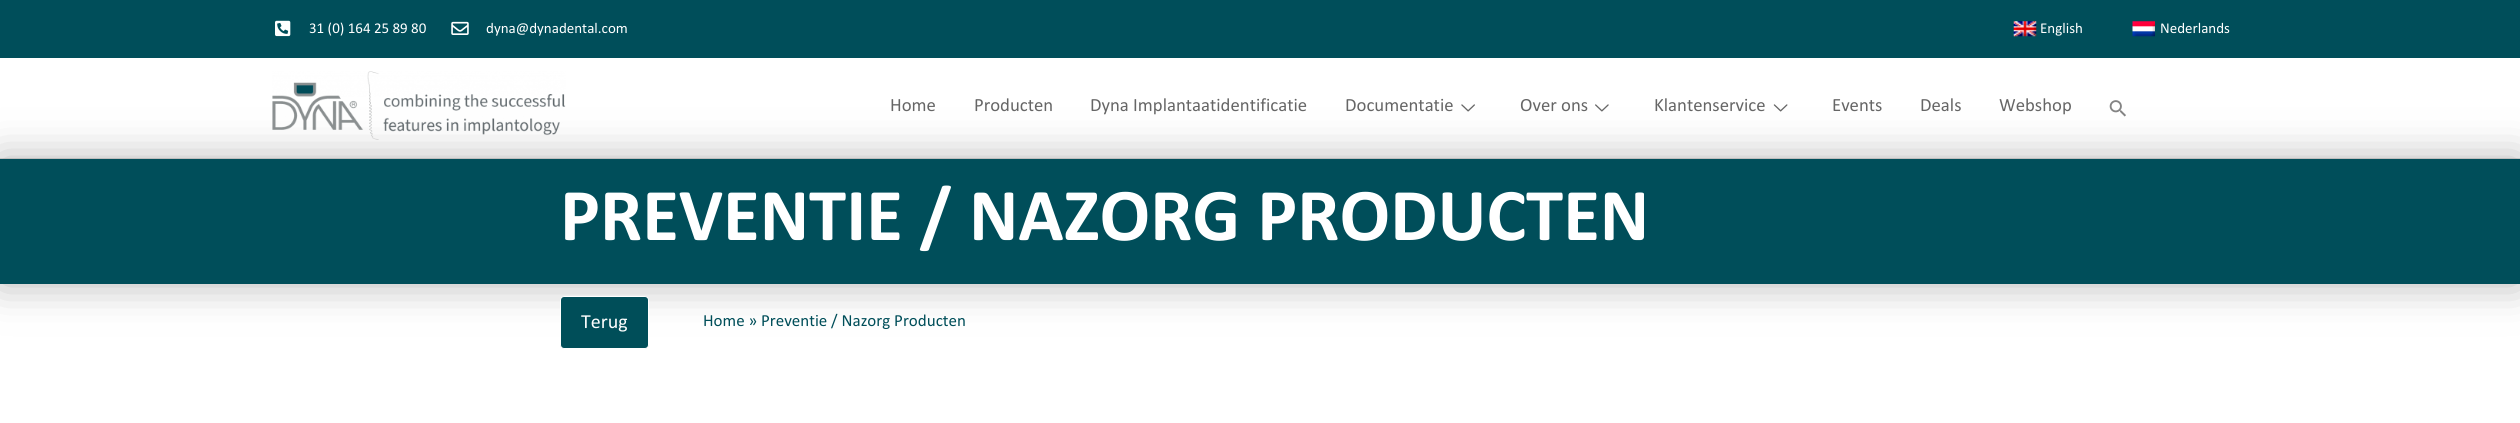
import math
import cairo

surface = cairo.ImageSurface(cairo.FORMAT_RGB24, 2520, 423)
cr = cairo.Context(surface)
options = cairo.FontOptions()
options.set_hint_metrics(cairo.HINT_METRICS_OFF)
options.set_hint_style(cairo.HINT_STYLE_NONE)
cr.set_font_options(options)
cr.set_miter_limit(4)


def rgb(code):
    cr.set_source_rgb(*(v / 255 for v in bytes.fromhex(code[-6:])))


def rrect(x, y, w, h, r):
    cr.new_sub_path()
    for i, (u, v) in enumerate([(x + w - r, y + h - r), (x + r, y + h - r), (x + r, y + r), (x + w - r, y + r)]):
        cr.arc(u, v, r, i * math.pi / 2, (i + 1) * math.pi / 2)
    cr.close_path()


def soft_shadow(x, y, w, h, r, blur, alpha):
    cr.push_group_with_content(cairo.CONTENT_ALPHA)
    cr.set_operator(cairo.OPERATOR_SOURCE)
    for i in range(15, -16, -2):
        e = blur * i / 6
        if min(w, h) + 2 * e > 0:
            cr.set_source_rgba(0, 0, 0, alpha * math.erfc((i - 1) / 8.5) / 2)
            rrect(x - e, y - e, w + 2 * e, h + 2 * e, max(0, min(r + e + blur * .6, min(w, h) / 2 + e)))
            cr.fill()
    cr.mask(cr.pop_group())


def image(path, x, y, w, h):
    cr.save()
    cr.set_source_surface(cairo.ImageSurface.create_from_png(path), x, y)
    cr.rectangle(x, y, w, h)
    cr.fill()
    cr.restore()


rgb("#ffffff")
cr.paint()
rgb("#004e5a")
cr.rectangle(0, 0, 2520, 58)
cr.fill()
image("img/1.png", 275, 20, 16, 17)
image("img/2.png", 451, 21, 18, 14)
image("img/3.png", 2013, 21, 24, 16)
image("img/4.png", 2132, 21, 23, 16)
rgb("#d8d8d8")
cr.rectangle(0, 158, 2520, 1)
cr.fill()
image("img/5.png", 272, 71, 294, 69)
rgb("#6b6b6b")
soft_shadow(0, 159, 2520, 125, 0, 21, 0.5)
image("img/6.png", 1461, 104, 14, 8)
image("img/7.png", 1595, 104, 14, 8)
image("img/8.png", 1773, 104, 15, 8)
image("img/9.png", 2109, 100, 17, 17)
rgb("#004e5a")
cr.rectangle(0, 159, 2520, 125)
cr.fill()
rgb("#004e59")
rrect(560.5, 296.5, 88, 52, 3.5)
cr.fill_preserve()
rgb("#ffffff")
cr.set_line_width(1)
cr.stroke()
cr.select_font_face("Calibri")
cr.set_font_size(15)
for x, y, s in [
    (309, 33, "31 (0) 164 25 89 80"),
    (486, 33, "dyna@dynadental.com"),
    (2040, 33, "English"),
    (2160, 33, "Nederlands"),
]:
    cr.move_to(x, y)
    cr.show_text(s)
cr.set_font_size(18.75)
rgb("#666666")
for x, y, s in [
    (890, 111, "Home"),
    (974, 111, "Producten"),
    (1090, 111, "Dyna Implantaatidentificatie"),
    (1345, 111, "Documentatie"),
    (1520, 111, "Over ons"),
    (1654, 111, "Klantenservice"),
    (1832, 111, "Events"),
    (1920, 111, "Deals"),
    (1999, 111, "Webshop"),
]:
    cr.move_to(x, y)
    cr.show_text(s)
cr.select_font_face("Calibri", cairo.FONT_SLANT_NORMAL, cairo.FONT_WEIGHT_BOLD)
cr.set_font_size(75)
rgb("#ffffff")
cr.move_to(560, 240)
cr.show_text("PREVENTIE / NAZORG PRODUCTEN")
cr.select_font_face("Calibri")
cr.set_font_size(20)
cr.move_to(581, 328)
cr.show_text("Terug")
cr.set_font_size(17)
rgb("#004e59")
cr.move_to(703, 326)
cr.show_text("Home » Preventie / Nazorg Producten")
surface.write_to_png("page.png")
